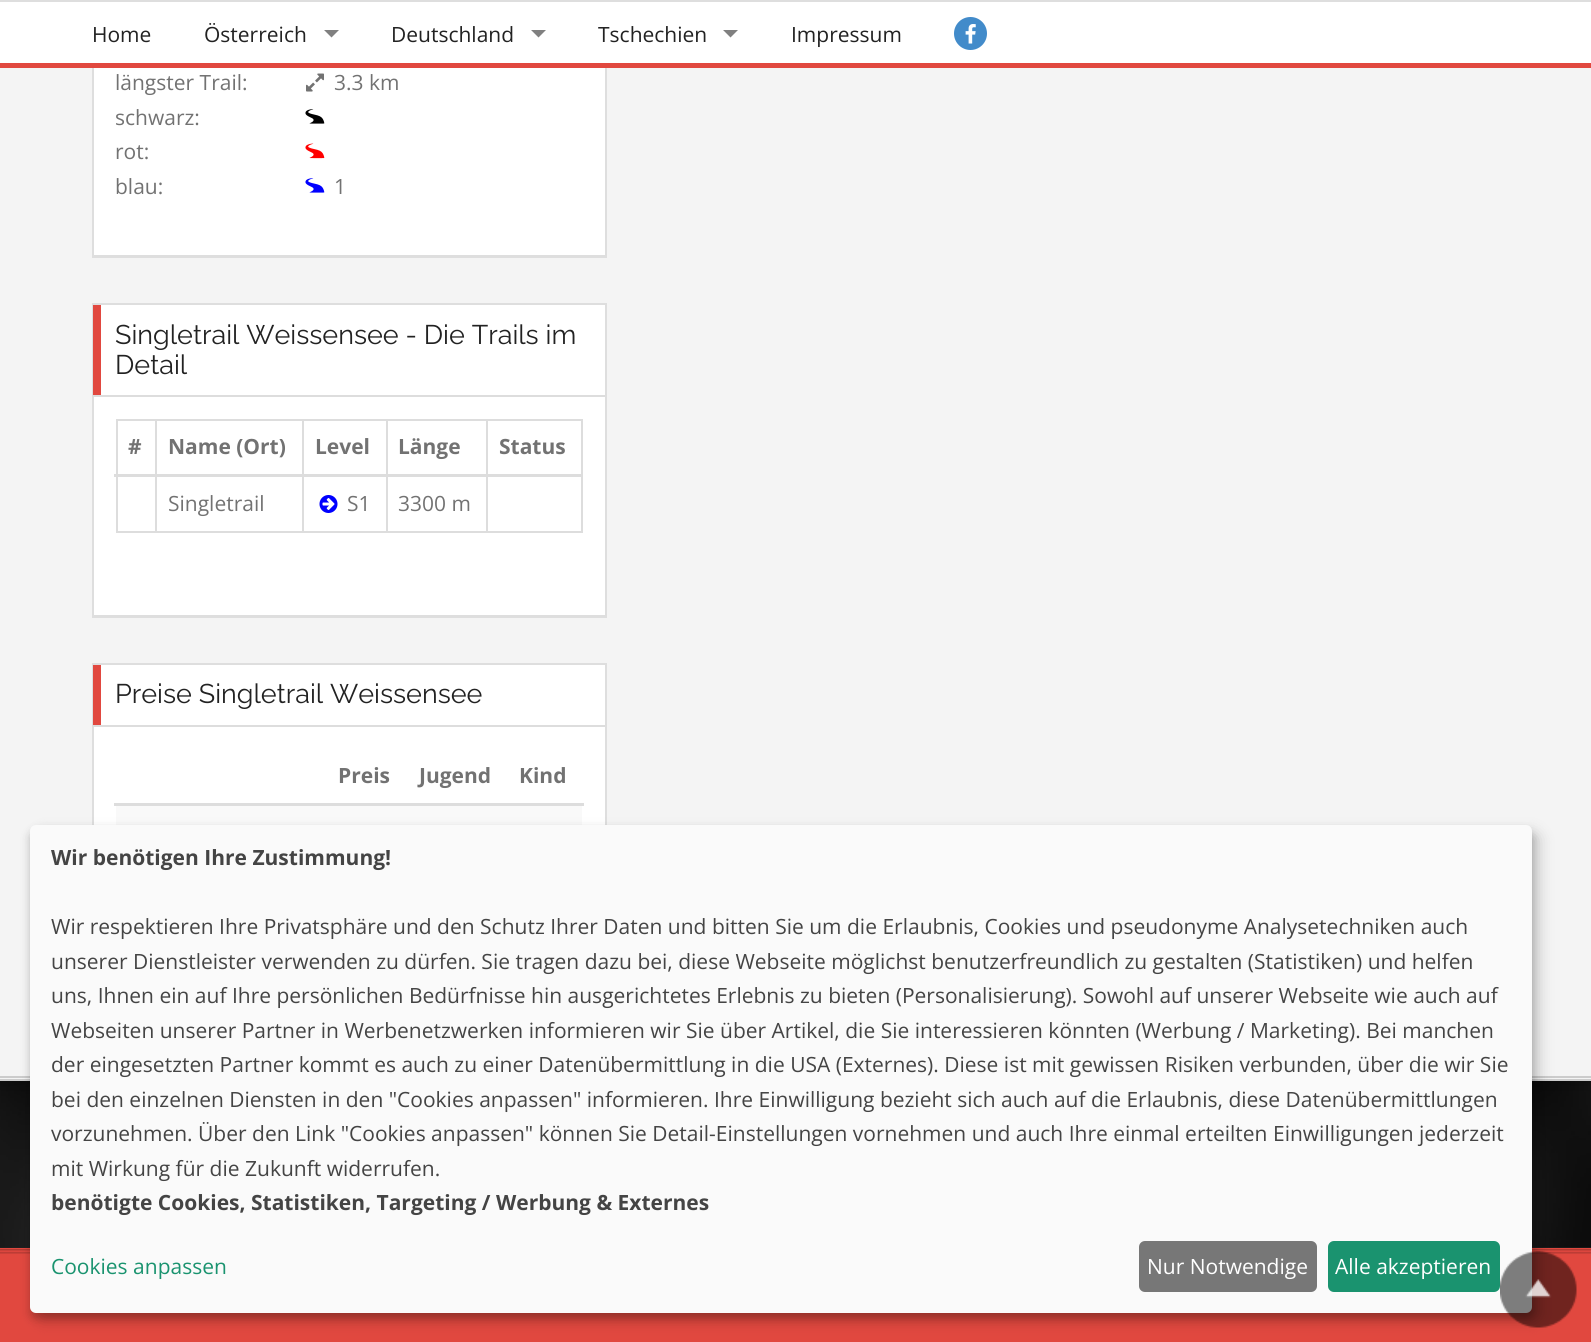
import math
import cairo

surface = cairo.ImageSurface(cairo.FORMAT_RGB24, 1591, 1342)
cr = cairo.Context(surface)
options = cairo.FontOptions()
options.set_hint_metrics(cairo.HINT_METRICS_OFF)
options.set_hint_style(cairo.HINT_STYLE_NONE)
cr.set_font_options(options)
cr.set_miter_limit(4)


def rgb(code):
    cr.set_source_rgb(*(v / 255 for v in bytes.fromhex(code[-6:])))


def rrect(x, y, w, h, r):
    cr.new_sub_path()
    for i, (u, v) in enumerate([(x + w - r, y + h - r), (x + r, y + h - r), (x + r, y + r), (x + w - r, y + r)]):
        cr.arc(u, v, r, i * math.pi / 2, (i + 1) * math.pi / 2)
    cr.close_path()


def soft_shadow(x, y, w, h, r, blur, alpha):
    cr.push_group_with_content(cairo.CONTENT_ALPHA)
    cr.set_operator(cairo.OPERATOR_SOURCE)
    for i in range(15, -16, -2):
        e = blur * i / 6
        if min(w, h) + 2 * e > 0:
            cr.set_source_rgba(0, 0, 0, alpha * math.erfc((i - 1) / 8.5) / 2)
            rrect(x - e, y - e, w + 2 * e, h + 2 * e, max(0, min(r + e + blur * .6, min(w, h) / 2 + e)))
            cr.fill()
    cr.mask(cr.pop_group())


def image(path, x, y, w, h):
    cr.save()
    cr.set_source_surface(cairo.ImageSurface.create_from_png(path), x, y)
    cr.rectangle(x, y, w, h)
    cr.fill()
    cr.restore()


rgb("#222222")
cr.paint()
image("img/7.png", 0, 1081, 1591, 167)
rgb("#000000")
soft_shadow(0, -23, 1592, 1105, 0, 7.5, 0.3)
for x, y, w, h, color in [
    (0, 2, 1591, 61, "#ffffff"),
    (0, 0, 1591, 2, "#dedede"),
    (0, 63, 1591, 5, "#e1483f"),
]:
    rgb(color)
    cr.rectangle(x, y, w, h)
    cr.fill()
rgb("#808080")
cr.new_path()
cr.move_to(324, 30)
cr.line_to(339, 30)
cr.line_to(331.5, 37.5)
cr.close_path()
cr.fill()
cr.new_path()
cr.move_to(531, 30)
cr.line_to(546, 30)
cr.line_to(538.5, 37.5)
cr.close_path()
cr.fill()
cr.new_path()
cr.move_to(723, 30)
cr.line_to(738, 30)
cr.line_to(730.5, 37.5)
cr.close_path()
cr.fill()
rgb("#428bca")
cr.arc(970.5, 33.5, 16.5, 0, 2 * math.pi)
cr.fill()
image("img/1.png", 965, 24, 11, 20)
for x, y, w, h, color in [
    (0, 68, 1591, 1011, "#f4f4f4"),
    (0, 1076, 1591, 2, "#cccccc"),
    (0, 1079, 1591, 2, "#cccccc"),
    (94, 68, 511, 187, "#ffffff"),
    (605, 68, 2, 190, "#dedede"),
    (92, 255, 514, 3, "#dedede"),
    (92, 68, 2, 190, "#dedede"),
]:
    rgb(color)
    cr.rectangle(x, y, w, h)
    cr.fill()
image("img/2.png", 306, 73, 18, 19)
image("img/3.png", 305, 109, 20, 15)
image("img/4.png", 305, 143, 20, 16)
image("img/5.png", 305, 178, 20, 15)
for x, y, w, h, color in [
    (94, 305, 511, 310, "#ffffff"),
    (92, 303, 514, 2, "#dedede"),
    (605, 303, 2, 315, "#dedede"),
    (92, 615, 514, 3, "#dedede"),
    (92, 303, 2, 315, "#dedede"),
    (93, 395, 512, 2, "#dddddd"),
    (93, 305, 8, 90, "#e1483f"),
    (116, 419, 466, 2, "#dddddd"),
    (581, 419, 2, 114, "#dddddd"),
    (116, 531, 466, 2, "#dddddd"),
    (116, 419, 2, 114, "#dddddd"),
    (155, 419, 2, 114, "#dddddd"),
    (302, 419, 2, 114, "#dddddd"),
    (386, 419, 2, 114, "#dddddd"),
    (486, 419, 2, 114, "#dddddd"),
    (114, 474, 468, 3, "#dddddd"),
]:
    rgb(color)
    cr.rectangle(x, y, w, h)
    cr.fill()
image("img/6.png", 319, 495, 19, 18)
for x, y, w, h, color in [
    (94, 665, 511, 160, "#ffffff"),
    (92, 663, 514, 2, "#dedede"),
    (605, 663, 2, 162, "#dedede"),
    (92, 663, 2, 162, "#dedede"),
    (93, 725, 512, 2, "#dddddd"),
    (93, 665, 8, 60, "#e1483f"),
    (114, 803, 470, 3, "#dddddd"),
    (116, 806, 466, 19, "#f9f9f9"),
    (0, 1248, 1591, 94, "#e1483f"),
]:
    rgb(color)
    cr.rectangle(x, y, w, h)
    cr.fill()
image("img/8.png", 0, 1249, 1591, 5)
rgb("#000000")
soft_shadow(38, 833, 1501, 487, 6, 7.5, 0.19)
soft_shadow(30, 831, 1502, 488, 6, 4.5, 0.2)
rgb("#fafafa")
rrect(30, 825, 1502, 488, 6)
cr.fill()
rgb("#777777")
rrect(1139, 1241, 178, 51, 6)
cr.fill()
rgb("#1a936f")
rrect(1328, 1241, 172, 51, 6)
cr.fill()
image("img/9.png", 1500, 1251, 77, 77)
cr.select_font_face("Open Sans")
cr.set_font_size(21)
rgb("#222222")
for x, y, s in [
    (92, 42, "Home"),
    (204, 42, "Österreich"),
    (391, 42, "Deutschland"),
    (598, 42, "Tschechien"),
    (791, 42, "Impressum"),
]:
    cr.move_to(x, y)
    cr.show_text(s)
rgb("#727272")
for x, y, s in [
    (115, 90, "längster Trail:"),
    (334, 90, "3.3 km"),
    (115, 125, "schwarz:"),
    (115, 159, "rot:"),
    (115, 194, "blau:"),
    (334, 194, "1"),
]:
    cr.move_to(x, y)
    cr.show_text(s)
cr.select_font_face("Raleway Thin")
cr.set_font_size(27)
rgb("#222222")
cr.move_to(115, 344)
cr.show_text("Singletrail Weissensee - Die Trails im")
cr.move_to(115, 374)
cr.show_text("Detail")
cr.select_font_face("Open Sans", cairo.FONT_SLANT_NORMAL, cairo.FONT_WEIGHT_BOLD)
cr.set_font_size(21)
rgb("#727272")
for x, y, s in [
    (128, 454, "#"),
    (168, 454, "Name (Ort)"),
    (315, 454, "Level"),
    (398, 454, "Länge"),
    (499, 454, "Status"),
]:
    cr.move_to(x, y)
    cr.show_text(s)
cr.select_font_face("Open Sans")
for x, y, s in [
    (168, 511, "Singletrail"),
    (347, 511, "S1"),
    (398, 511, "3300 m"),
]:
    cr.move_to(x, y)
    cr.show_text(s)
cr.select_font_face("Raleway Thin")
cr.set_font_size(27)
rgb("#222222")
cr.move_to(115, 703)
cr.show_text("Preise Singletrail Weissensee")
cr.select_font_face("Open Sans", cairo.FONT_SLANT_NORMAL, cairo.FONT_WEIGHT_BOLD)
cr.set_font_size(21)
rgb("#727272")
for x, y, s in [
    (338, 783, "Preis"),
    (419, 783, "Jugend"),
    (519, 783, "Kind"),
]:
    cr.move_to(x, y)
    cr.show_text(s)
rgb("#444444")
cr.move_to(51, 865)
cr.show_text("Wir benötigen Ihre Zustimmung!")
cr.select_font_face("Open Sans")
for x, y, s in [
    (51, 934, "Wir respektieren Ihre Privatsphäre und den Schutz Ihrer Daten und bitten Sie um die Erlaubnis, Cookies und pseudonyme Analysetechniken auch"),
    (51, 969, "unserer Dienstleister verwenden zu dürfen. Sie tragen dazu bei, diese Webseite möglichst benutzerfreundlich zu gestalten (Statistiken) und helfen"),
    (51, 1003, "uns, Ihnen ein auf Ihre persönlichen Bedürfnisse hin ausgerichtetes Erlebnis zu bieten (Personalisierung). Sowohl auf unserer Webseite wie auch auf"),
    (51, 1038, "Webseiten unserer Partner in Werbenetzwerken informieren wir Sie über Artikel, die Sie interessieren könnten (Werbung / Marketing). Bei manchen"),
    (51, 1072, "der eingesetzten Partner kommt es auch zu einer Datenübermittlung in die USA (Externes). Diese ist mit gewissen Risiken verbunden, über die wir Sie"),
    (51, 1107, "bei den einzelnen Diensten in den \"Cookies anpassen\" informieren. Ihre Einwilligung bezieht sich auch auf die Erlaubnis, diese Datenübermittlungen"),
    (51, 1141, "vorzunehmen. Über den Link \"Cookies anpassen\" können Sie Detail-Einstellungen vornehmen und auch Ihre einmal erteilten Einwilligungen jederzeit"),
    (51, 1176, "mit Wirkung für die Zukunft widerrufen."),
]:
    cr.move_to(x, y)
    cr.show_text(s)
cr.select_font_face("Open Sans", cairo.FONT_SLANT_NORMAL, cairo.FONT_WEIGHT_BOLD)
cr.move_to(51, 1210)
cr.show_text("benötigte Cookies, Statistiken, Targeting / Werbung & Externes")
cr.select_font_face("Open Sans")
rgb("#1a936f")
cr.move_to(51, 1274)
cr.show_text("Cookies anpassen")
rgb("#ffffff")
cr.move_to(1147, 1274)
cr.show_text("Nur Notwendige")
cr.move_to(1335, 1274)
cr.show_text("Alle akzeptieren")
surface.write_to_png("page.png")
